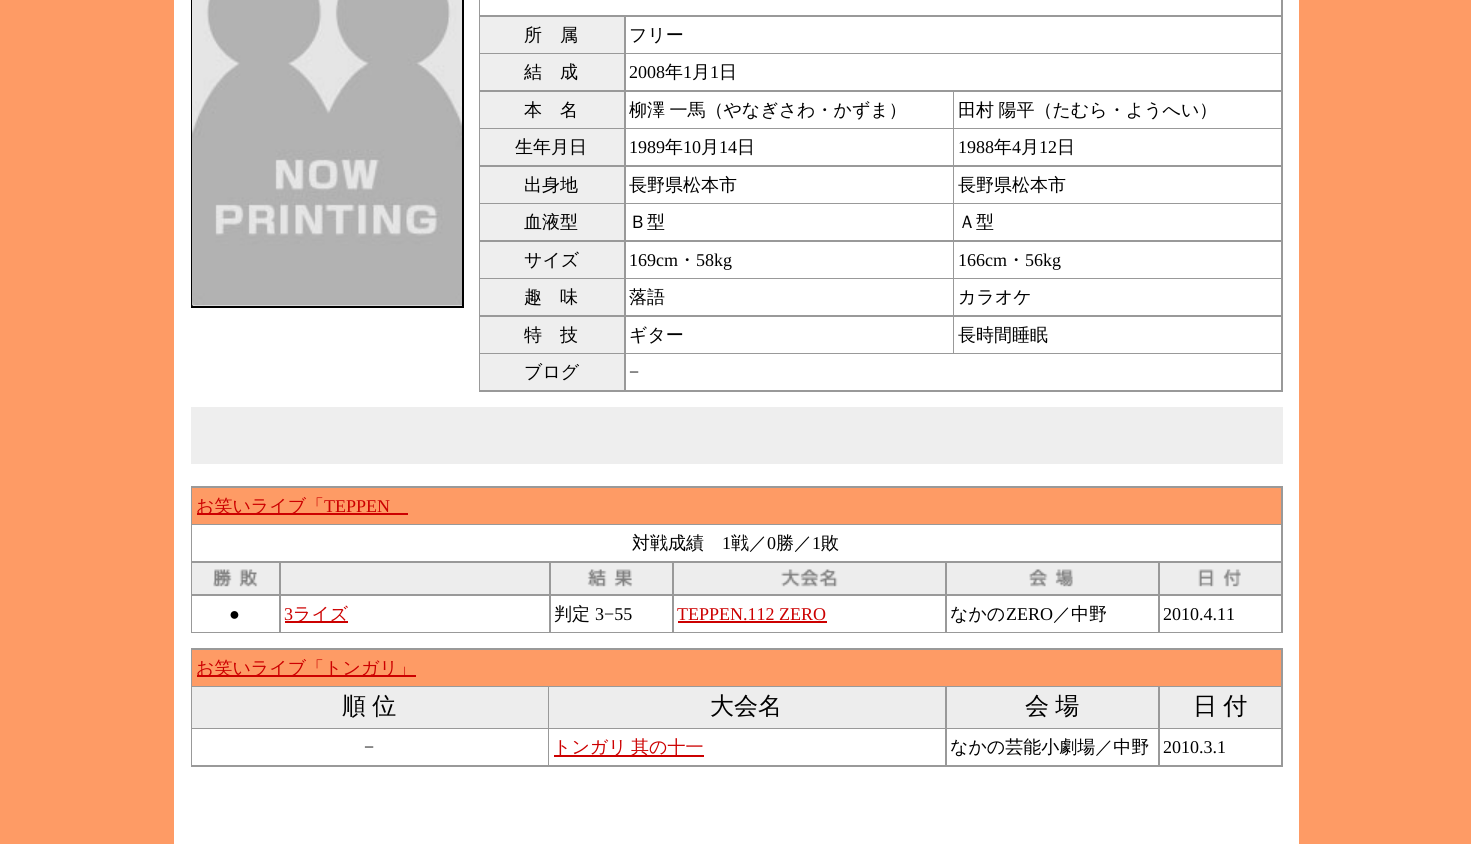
import math
import cairo

surface = cairo.ImageSurface(cairo.FORMAT_RGB24, 1471, 844)
cr = cairo.Context(surface)
options = cairo.FontOptions()
options.set_hint_metrics(cairo.HINT_METRICS_OFF)
options.set_hint_style(cairo.HINT_STYLE_NONE)
cr.set_font_options(options)
cr.set_miter_limit(4)


def rgb(code):
    cr.set_source_rgb(*(v / 255 for v in bytes.fromhex(code[-6:])))


def tracked(x, y, s, letter, word):
    cr.move_to(x, y)
    for ch in s:
        cr.show_text(ch)
        cr.rel_move_to(letter + word * (ch == ' '), 0)


def image(path, x, y, w, h):
    cr.save()
    cr.set_source_surface(cairo.ImageSurface.create_from_png(path), x, y)
    cr.rectangle(x, y, w, h)
    cr.fill()
    cr.restore()


rgb("#fe9b65")
cr.paint()
rgb("#ffffff")
cr.rectangle(174, 0, 1125, 844)
cr.fill()
cr.rectangle(192, -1, 271, 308)
rgb("#000000")
cr.stroke()
image("img/1.png", 192, 0, 270, 306)
for x, y, w, h, color in [
    (479, 0, 804, 392, "#999999"),
    (480, 0, 801, 15, "#ffffff"),
    (480, 17, 144, 36, "#eeeeee"),
    (626, 17, 655, 36, "#ffffff"),
    (480, 54, 144, 36, "#eeeeee"),
    (626, 54, 655, 36, "#ffffff"),
    (480, 92, 144, 36, "#eeeeee"),
    (626, 92, 327, 36, "#ffffff"),
    (954, 92, 327, 36, "#ffffff"),
    (480, 129, 144, 36, "#eeeeee"),
    (626, 129, 327, 36, "#ffffff"),
    (954, 129, 327, 36, "#ffffff"),
    (480, 167, 144, 36, "#eeeeee"),
    (626, 167, 327, 36, "#ffffff"),
    (954, 167, 327, 36, "#ffffff"),
    (480, 204, 144, 36, "#eeeeee"),
    (626, 204, 327, 36, "#ffffff"),
    (954, 204, 327, 36, "#ffffff"),
    (480, 242, 144, 36, "#eeeeee"),
    (626, 242, 327, 36, "#ffffff"),
    (954, 242, 327, 36, "#ffffff"),
    (480, 279, 144, 36, "#eeeeee"),
    (626, 279, 327, 36, "#ffffff"),
    (954, 279, 327, 36, "#ffffff"),
    (480, 317, 144, 36, "#eeeeee"),
    (626, 317, 327, 36, "#ffffff"),
    (954, 317, 327, 36, "#ffffff"),
    (480, 354, 144, 36, "#eeeeee"),
    (626, 354, 655, 36, "#ffffff"),
    (191, 407, 1092, 57, "#eeeeee"),
    (191, 486, 1092, 147, "#999999"),
    (192, 488, 1089, 36, "#fe9b65"),
    (197, 513, 211, 2, "#cc0000"),
    (192, 525, 1089, 36, "#ffffff"),
    (192, 563, 87, 31, "#ededed"),
]:
    rgb(color)
    cr.rectangle(x, y, w, h)
    cr.fill()
image("img/2.png", 213, 569, 45, 18)
cr.rectangle(281, 563, 268, 31)
cr.fill()
cr.rectangle(551, 563, 121, 31)
cr.fill()
image("img/3.png", 587, 569, 46, 18)
cr.rectangle(674, 563, 271, 31)
cr.fill()
image("img/4.png", 781, 569, 57, 18)
cr.rectangle(947, 563, 211, 31)
cr.fill()
image("img/5.png", 1029, 569, 44, 18)
cr.rectangle(1160, 563, 121, 31)
cr.fill()
image("img/6.png", 1198, 569, 43, 18)
for x, y, w, h, color in [
    (192, 596, 87, 36, "#ffffff"),
    (281, 596, 268, 36, "#ffffff"),
    (285, 621, 63, 2, "#cc0000"),
    (551, 596, 121, 36, "#ffffff"),
    (674, 596, 271, 36, "#ffffff"),
    (678, 621, 149, 2, "#cc0000"),
    (947, 596, 211, 36, "#ffffff"),
    (1160, 596, 121, 36, "#ffffff"),
    (191, 648, 1092, 119, "#999999"),
    (192, 650, 1089, 36, "#fe9b65"),
    (197, 675, 219, 2, "#cc0000"),
    (192, 687, 356, 41, "#ededed"),
    (549, 687, 396, 41, "#ededed"),
    (947, 687, 211, 41, "#ededed"),
    (1160, 687, 121, 41, "#ededed"),
    (192, 729, 356, 36, "#ffffff"),
    (549, 729, 396, 36, "#ffffff"),
    (554, 755, 150, 2, "#cc0000"),
    (947, 729, 211, 36, "#ffffff"),
    (1160, 729, 121, 36, "#ffffff"),
]:
    rgb(color)
    cr.rectangle(x, y, w, h)
    cr.fill()
cr.select_font_face("WenQuanYi Zen Hei Medium")
cr.set_font_size(18)
rgb("#000000")
for x, y, s in [
    (524, 41, "所　属"),
    (629, 41, "フリー"),
    (524, 78, "結　成"),
]:
    cr.move_to(x, y)
    cr.show_text(s)
cr.select_font_face("Liberation Serif")
cr.move_to(629, 78)
cr.show_text("2008")
cr.select_font_face("WenQuanYi Zen Hei Medium")
cr.move_to(665, 78)
cr.show_text("年")
cr.select_font_face("Liberation Serif")
cr.move_to(683, 78)
cr.show_text("1")
cr.select_font_face("WenQuanYi Zen Hei Medium")
cr.move_to(692, 78)
cr.show_text("月")
cr.select_font_face("Liberation Serif")
cr.move_to(710, 78)
cr.show_text("1")
cr.select_font_face("WenQuanYi Zen Hei Medium")
cr.move_to(719, 78)
cr.show_text("日")
cr.move_to(524, 116)
cr.show_text("本　名")
tracked(629, 116, "柳澤 一馬（やなぎさわ・かずま）", 0, -1)
tracked(958, 116, "田村 陽平（たむら・ようへい）", 0, -1)
cr.move_to(515, 153)
cr.show_text("生年月日")
cr.select_font_face("Liberation Serif")
cr.move_to(629, 153)
cr.show_text("1989")
cr.select_font_face("WenQuanYi Zen Hei Medium")
cr.move_to(665, 153)
cr.show_text("年")
cr.select_font_face("Liberation Serif")
cr.move_to(683, 153)
cr.show_text("10")
cr.select_font_face("WenQuanYi Zen Hei Medium")
cr.move_to(701, 153)
cr.show_text("月")
cr.select_font_face("Liberation Serif")
cr.move_to(719, 153)
cr.show_text("14")
cr.select_font_face("WenQuanYi Zen Hei Medium")
cr.move_to(737, 153)
cr.show_text("日")
cr.select_font_face("Liberation Serif")
cr.move_to(958, 153)
cr.show_text("1988")
cr.select_font_face("WenQuanYi Zen Hei Medium")
cr.move_to(994, 153)
cr.show_text("年")
cr.select_font_face("Liberation Serif")
cr.move_to(1012, 153)
cr.show_text("4")
cr.select_font_face("WenQuanYi Zen Hei Medium")
cr.move_to(1021, 153)
cr.show_text("月")
cr.select_font_face("Liberation Serif")
cr.move_to(1039, 153)
cr.show_text("12")
cr.select_font_face("WenQuanYi Zen Hei Medium")
for x, y, s in [
    (1057, 153, "日"),
    (524, 191, "出身地"),
    (629, 191, "長野県松本市"),
    (958, 191, "長野県松本市"),
    (524, 228, "血液型"),
    (629, 228, "Ｂ型"),
    (958, 228, "Ａ型"),
    (524, 266, "サイズ"),
]:
    cr.move_to(x, y)
    cr.show_text(s)
cr.select_font_face("Liberation Serif")
cr.move_to(629, 266)
cr.show_text("169cm")
cr.select_font_face("WenQuanYi Zen Hei Medium")
cr.move_to(678, 266)
cr.show_text("・")
cr.select_font_face("Liberation Serif")
cr.move_to(696, 266)
cr.show_text("58kg")
cr.move_to(958, 266)
cr.show_text("166cm")
cr.select_font_face("WenQuanYi Zen Hei Medium")
cr.move_to(1007, 266)
cr.show_text("・")
cr.select_font_face("Liberation Serif")
cr.move_to(1025, 266)
cr.show_text("56kg")
cr.select_font_face("WenQuanYi Zen Hei Medium")
for x, y, s in [
    (524, 303, "趣　味"),
    (629, 303, "落語"),
    (958, 303, "カラオケ"),
    (524, 341, "特　技"),
    (629, 341, "ギター"),
    (958, 341, "長時間睡眠"),
    (524, 378, "ブログ"),
]:
    cr.move_to(x, y)
    cr.show_text(s)
cr.select_font_face("Liberation Serif")
cr.move_to(629, 378)
cr.show_text("−")
cr.select_font_face("WenQuanYi Zen Hei Medium")
rgb("#cc0000")
cr.move_to(196, 512)
cr.show_text("お笑いライブ「")
cr.select_font_face("Liberation Serif")
cr.move_to(324, 512)
cr.show_text("TEPPEN")
cr.select_font_face("WenQuanYi Zen Hei Medium")
rgb("#000000")
cr.move_to(632, 549)
cr.show_text("対戦成績")
cr.select_font_face("Liberation Serif")
cr.move_to(722, 549)
cr.show_text("1")
cr.select_font_face("WenQuanYi Zen Hei Medium")
cr.move_to(731, 549)
cr.show_text("戦／")
cr.select_font_face("Liberation Serif")
cr.move_to(767, 549)
cr.show_text("0")
cr.select_font_face("WenQuanYi Zen Hei Medium")
cr.move_to(776, 549)
cr.show_text("勝／")
cr.select_font_face("Liberation Serif")
cr.move_to(812, 549)
cr.show_text("1")
cr.select_font_face("WenQuanYi Zen Hei Medium")
cr.move_to(821, 549)
cr.show_text("敗")
cr.select_font_face("Liberation Serif")
cr.move_to(229, 620)
cr.show_text("●")
rgb("#cc0000")
cr.move_to(284, 620)
cr.show_text("3")
cr.select_font_face("WenQuanYi Zen Hei Medium")
cr.move_to(293, 620)
cr.show_text("ライズ")
rgb("#000000")
cr.move_to(554, 620)
cr.show_text("判定")
cr.select_font_face("Liberation Serif")
cr.move_to(595, 620)
cr.show_text("3−55")
rgb("#cc0000")
cr.move_to(677, 620)
cr.show_text("TEPPEN.112 ZERO")
cr.select_font_face("WenQuanYi Zen Hei Medium")
rgb("#000000")
cr.move_to(950, 620)
cr.show_text("なかの")
cr.select_font_face("Liberation Serif")
cr.move_to(1006, 620)
cr.show_text("ZERO")
cr.select_font_face("WenQuanYi Zen Hei Medium")
cr.move_to(1053, 620)
cr.show_text("／中野")
cr.select_font_face("Liberation Serif")
cr.move_to(1163, 620)
cr.show_text("2010.4.11")
cr.select_font_face("WenQuanYi Zen Hei Medium")
rgb("#cc0000")
cr.move_to(196, 674)
cr.show_text("お笑いライブ「トンガリ」")
cr.set_font_size(24)
rgb("#000000")
tracked(342, 714, "順 位", 0, -1)
cr.move_to(710, 714)
cr.show_text("大会名")
tracked(1025, 714, "会 場", 0, -1)
tracked(1193, 714, "日 付", 0, -1)
cr.select_font_face("Liberation Serif")
cr.set_font_size(18)
cr.move_to(364, 753)
cr.show_text("−")
cr.select_font_face("WenQuanYi Zen Hei Medium")
rgb("#cc0000")
cr.move_to(553, 753)
cr.show_text("トンガリ")
cr.move_to(631, 753)
cr.show_text("其の十一")
rgb("#000000")
cr.move_to(950, 753)
cr.show_text("なかの芸能小劇場／中野")
cr.select_font_face("Liberation Serif")
cr.move_to(1163, 753)
cr.show_text("2010.3.1")
surface.write_to_png("page.png")
